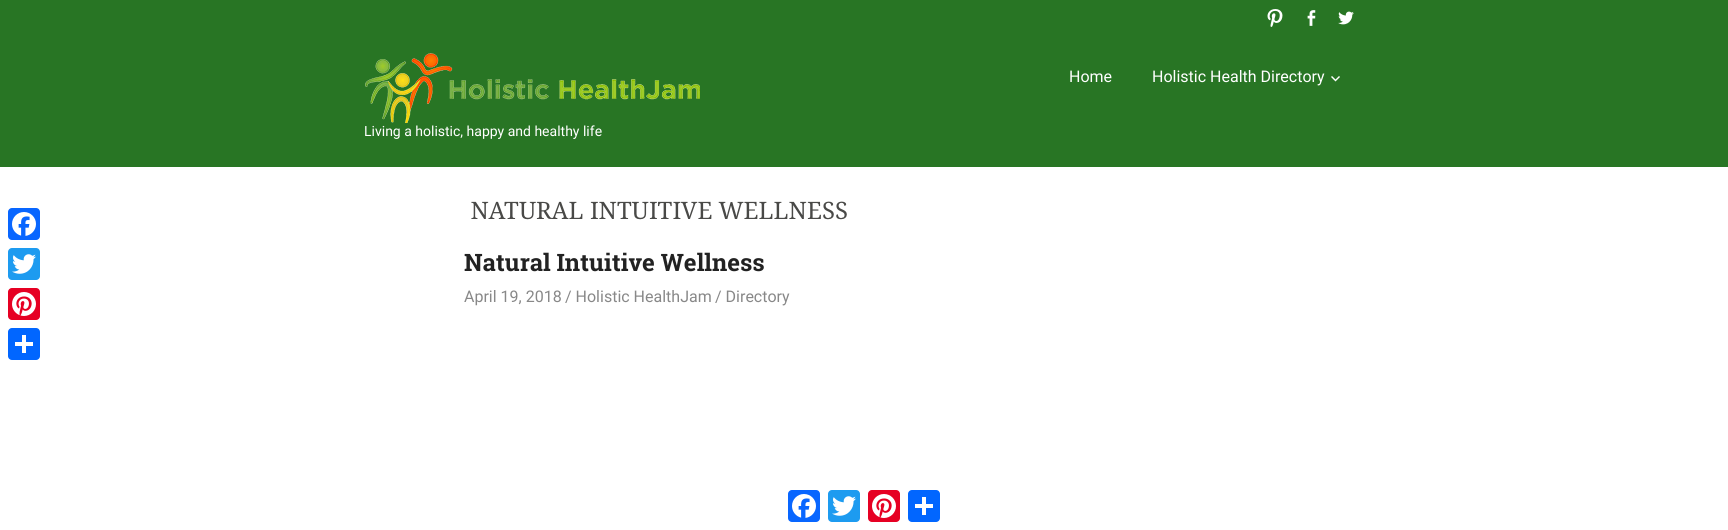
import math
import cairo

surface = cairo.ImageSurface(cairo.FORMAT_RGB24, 1728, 530)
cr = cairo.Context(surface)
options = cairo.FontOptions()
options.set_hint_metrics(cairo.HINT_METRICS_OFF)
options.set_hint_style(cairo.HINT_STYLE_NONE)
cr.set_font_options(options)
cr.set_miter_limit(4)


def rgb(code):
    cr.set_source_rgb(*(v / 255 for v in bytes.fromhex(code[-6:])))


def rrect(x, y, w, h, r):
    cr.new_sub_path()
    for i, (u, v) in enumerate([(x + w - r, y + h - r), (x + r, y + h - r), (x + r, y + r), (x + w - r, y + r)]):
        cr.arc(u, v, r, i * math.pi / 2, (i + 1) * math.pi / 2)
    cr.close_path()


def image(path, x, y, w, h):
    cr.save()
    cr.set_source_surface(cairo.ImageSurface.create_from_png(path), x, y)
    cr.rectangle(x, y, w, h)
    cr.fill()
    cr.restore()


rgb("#ffffff")
cr.paint()
rgb("#0866ff")
rrect(8, 208, 32, 32, 4)
cr.fill()
image("img/1.png", 12, 212, 24, 24)
rgb("#1d9bf0")
rrect(8, 248, 32, 32, 4)
cr.fill()
image("img/2.png", 12, 254, 24, 20)
rgb("#e60023")
rrect(8, 288, 32, 32, 4)
cr.fill()
image("img/3.png", 12, 292, 24, 24)
rgb("#0166ff")
rrect(8, 328, 32, 32, 4)
cr.fill()
for x, y, w, h, color in [
    (22, 335, 4, 18, "#ffffff"),
    (15, 342, 18, 4, "#ffffff"),
    (0, 0, 1728, 167, "#287524"),
]:
    rgb(color)
    cr.rectangle(x, y, w, h)
    cr.fill()
image("img/4.png", 1267, 9, 16, 18)
image("img/5.png", 1307, 10, 9, 16)
image("img/6.png", 1338, 11, 16, 14)
image("img/7.png", 1331, 76, 9, 6)
image("img/8.png", 365, 53, 335, 70)
image("img/9.png", 471, 201, 376, 19)
rgb("#0866ff")
rrect(788, 490, 32, 32, 4)
cr.fill()
image("img/1.png", 792, 494, 24, 24)
rgb("#1d9bf0")
rrect(828, 490, 32, 32, 4)
cr.fill()
image("img/2.png", 832, 496, 24, 20)
rgb("#e60023")
rrect(868, 490, 32, 32, 4)
cr.fill()
image("img/3.png", 872, 494, 24, 24)
rgb("#0166ff")
rrect(908, 490, 32, 32, 4)
cr.fill()
rgb("#ffffff")
cr.rectangle(922, 497, 4, 18)
cr.fill()
cr.rectangle(915, 504, 18, 4)
cr.fill()
cr.select_font_face("Roboto")
cr.set_font_size(16)
cr.move_to(1069, 82)
cr.show_text("Home")
cr.move_to(1152, 82)
cr.show_text("Holistic Health Directory")
cr.set_font_size(14)
cr.move_to(364, 136)
cr.show_text("Living a holistic, happy and healthy life")
cr.select_font_face("Roboto Slab", cairo.FONT_SLANT_NORMAL, cairo.FONT_WEIGHT_BOLD)
cr.set_font_size(24)
rgb("#222222")
cr.move_to(464, 271)
cr.show_text("Natural Intuitive Wellness")
cr.select_font_face("Roboto")
cr.set_font_size(16)
rgb("#888888")
for x, y, s in [
    (464, 302, "April 19, 2018"),
    (565, 302, "/ Holistic HealthJam"),
    (715, 302, "/ Directory"),
]:
    cr.move_to(x, y)
    cr.show_text(s)
surface.write_to_png("page.png")
